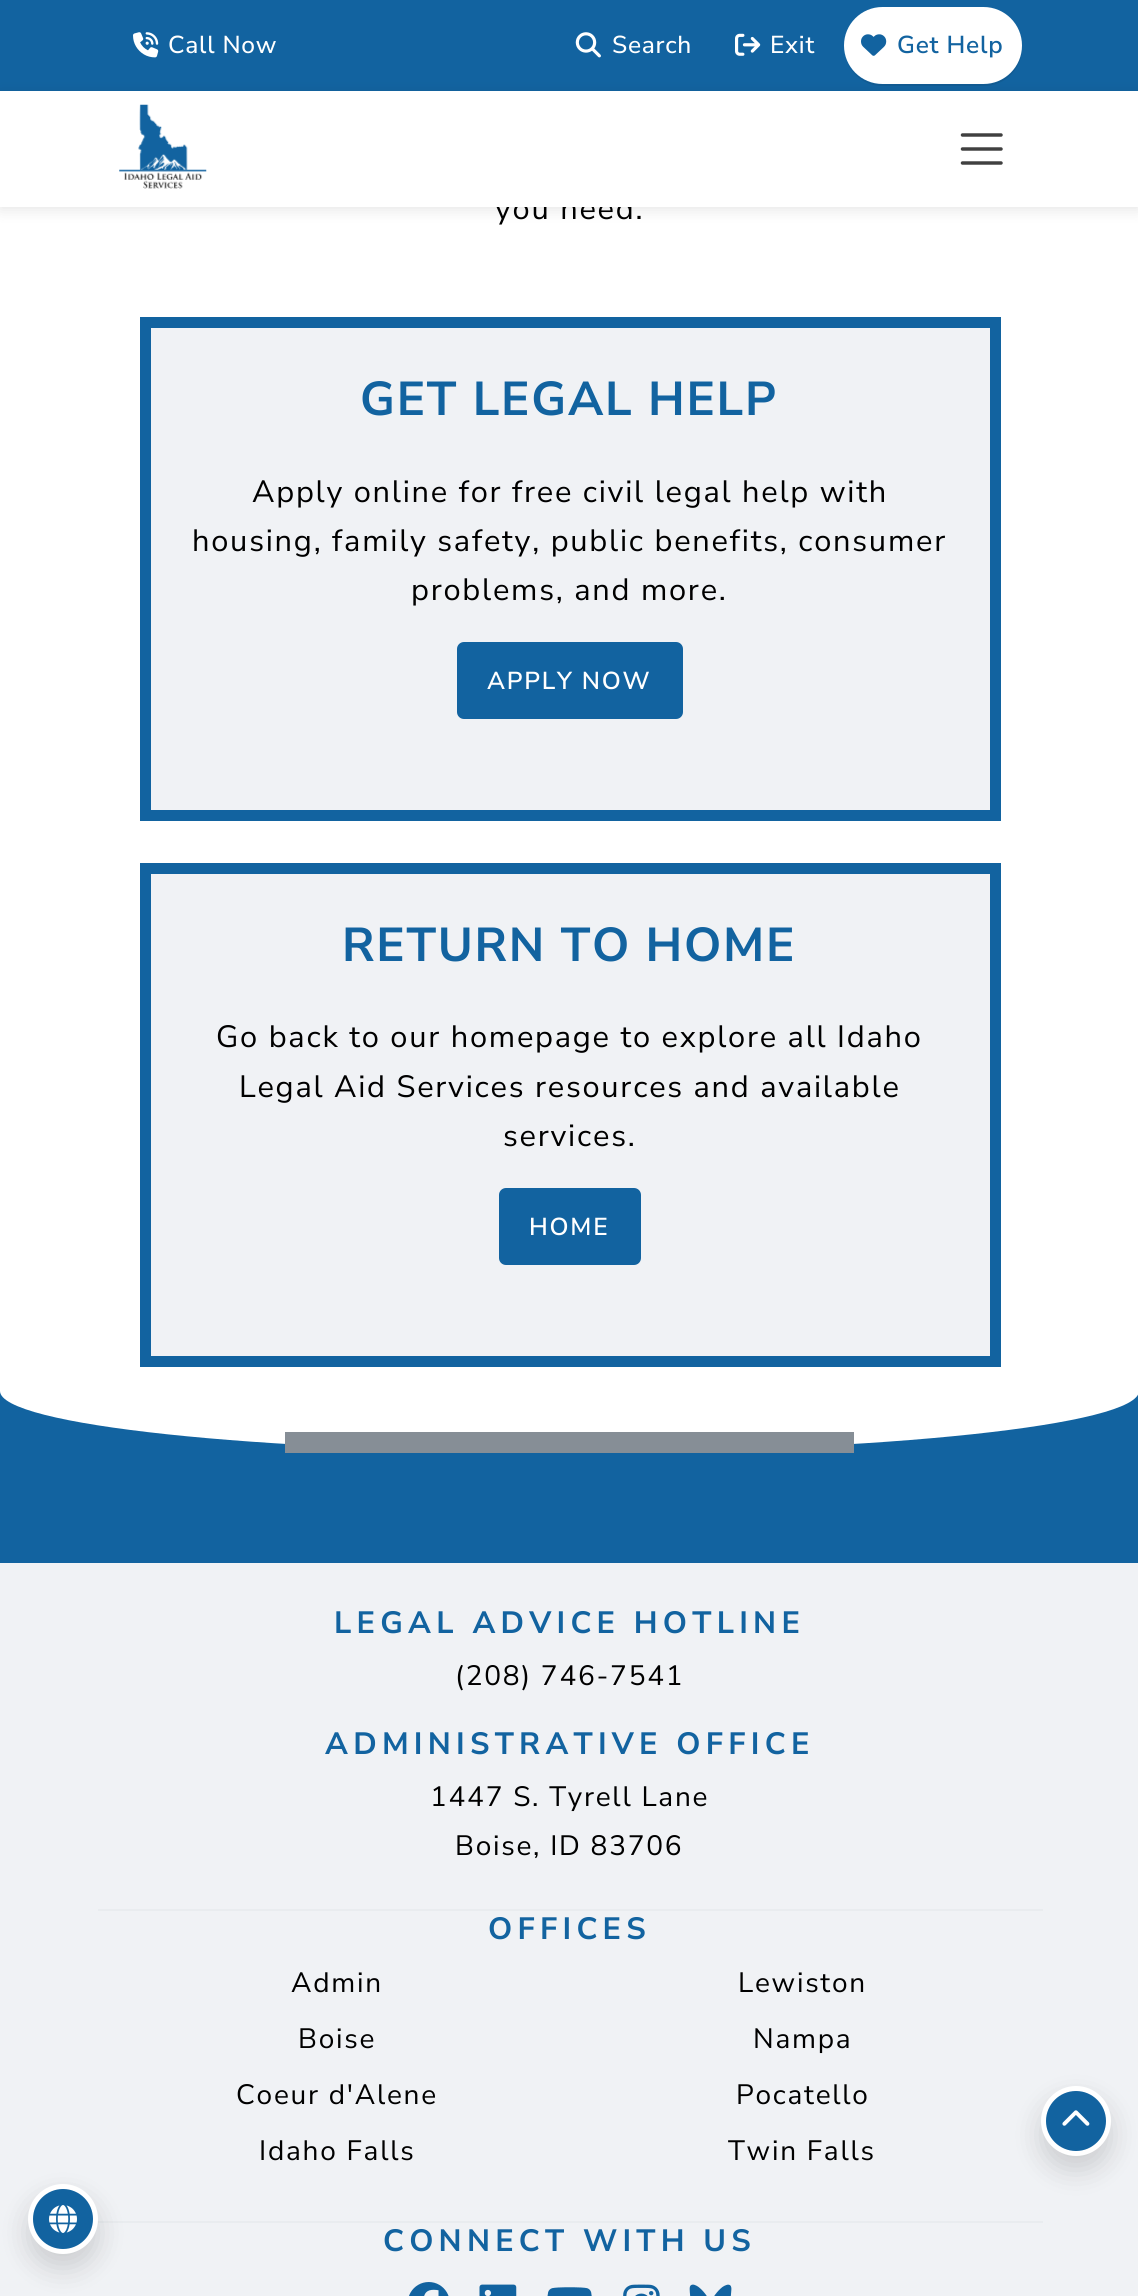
import math
import cairo

surface = cairo.ImageSurface(cairo.FORMAT_RGB24, 1138, 2296)
cr = cairo.Context(surface)
options = cairo.FontOptions()
options.set_hint_metrics(cairo.HINT_METRICS_OFF)
options.set_hint_style(cairo.HINT_STYLE_NONE)
cr.set_font_options(options)
cr.set_miter_limit(4)


def rgb(code):
    cr.set_source_rgb(*(v / 255 for v in bytes.fromhex(code[-6:])))


def tracked(x, y, s, letter, word):
    cr.move_to(x, y)
    for ch in s:
        cr.show_text(ch)
        cr.rel_move_to(letter + word * (ch == ' '), 0)


def rrect(x, y, w, h, r):
    cr.new_sub_path()
    for i, (u, v) in enumerate([(x + w - r, y + h - r), (x + r, y + h - r), (x + r, y + r), (x + w - r, y + r)]):
        cr.arc(u, v, r, i * math.pi / 2, (i + 1) * math.pi / 2)
    cr.close_path()


def soft_shadow(x, y, w, h, r, blur, alpha):
    cr.push_group_with_content(cairo.CONTENT_ALPHA)
    cr.set_operator(cairo.OPERATOR_SOURCE)
    for i in range(15, -16, -2):
        e = blur * i / 6
        if min(w, h) + 2 * e > 0:
            cr.set_source_rgba(0, 0, 0, alpha * math.erfc((i - 1) / 8.5) / 2)
            rrect(x - e, y - e, w + 2 * e, h + 2 * e, max(0, min(r + e + blur * .6, min(w, h) / 2 + e)))
            cr.fill()
    cr.mask(cr.pop_group())


def image(path, x, y, w, h):
    cr.save()
    cr.set_source_surface(cairo.ImageSurface.create_from_png(path), x, y)
    cr.rectangle(x, y, w, h)
    cr.fill()
    cr.restore()


rgb("#ffffff")
cr.paint()
rgb("#f0f2f5")
cr.rectangle(0, 1563, 1138, 733)
cr.fill()
rgb("#e9ecef")
cr.rectangle(98, 2221, 945, 2)
cr.fill()
rgb("#000000")
soft_shadow(28, 2198, 70, 70, 35, 14, 0.15)
rgb("#1263a0")
cr.arc(63, 2219, 32.5, 0, 2 * math.pi)
cr.fill_preserve()
rgb("#ffffff")
cr.set_line_width(5)
cr.stroke()
image("img/1.png", 49, 2205, 28, 28)
rgb("#1263a0")
cr.rectangle(0, 0, 1138, 91)
cr.fill()
image("img/2.png", 133, 32, 26, 26)
image("img/3.png", 575, 32, 26, 26)
image("img/4.png", 735, 33, 26, 23)
rgb("#115b93")
cr.new_path()
cr.move_to(845, 56)
cr.curve_to(849, 73, 864, 86, 882, 86)
cr.line_to(984, 86)
cr.curve_to(1005, 86, 1022, 69, 1022, 48)
cr.line_to(1022, 46)
cr.curve_to(1021, 67, 1004, 84, 984, 84)
cr.line_to(882, 84)
cr.curve_to(864, 84, 849, 72, 845, 56)
cr.close_path()
cr.fill()
rgb("#ffffff")
rrect(844, 7, 178, 77, 38.5)
cr.fill()
image("img/5.png", 861, 34, 26, 22)
rgb("#000000")
soft_shadow(0, 95, 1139, 115, 0, 7, 0.1)
rgb("#f0f2f5")
cr.rectangle(145.5, 322.5, 850, 493)
cr.fill_preserve()
rgb("#1263a0")
cr.set_line_width(11)
cr.stroke()
rrect(459, 644, 222, 73, 5)
cr.fill_preserve()
cr.set_line_width(4)
cr.stroke()
rgb("#f0f2f5")
cr.rectangle(145.5, 868.5, 850, 493)
cr.fill_preserve()
rgb("#1263a0")
cr.set_line_width(11)
cr.stroke()
rrect(501, 1190, 138, 73, 5)
cr.fill_preserve()
cr.set_line_width(4)
cr.stroke()
cr.rectangle(0, 1391, 1138, 172)
cr.fill()
rgb("#ffffff")
cr.new_path()
cr.move_to(0, 1391)
cr.line_to(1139, 1391)
cr.curve_to(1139, 1425, 884, 1452, 570, 1452)
cr.curve_to(255, 1452, 0, 1425, 0, 1391)
cr.close_path()
cr.fill()
rgb("#868e96")
cr.rectangle(285, 1432, 569, 21)
cr.fill()
rgb("#e9ecef")
cr.rectangle(98, 1909, 945, 2)
cr.fill()
image("img/7.png", 409, 2282, 40, 14)
image("img/8.png", 479, 2284, 38, 12)
image("img/9.png", 547, 2287, 45, 9)
image("img/10.png", 623, 2284, 37, 12)
image("img/11.png", 689, 2284, 43, 12)
rgb("#000000")
soft_shadow(1041, 2100, 70, 70, 35, 14, 0.15)
rgb("#1263a0")
cr.arc(1076, 2121, 32.5, 0, 2 * math.pi)
cr.fill_preserve()
rgb("#ffffff")
cr.set_line_width(5)
cr.stroke()
image("img/12.png", 1062, 2110, 28, 16)
cr.select_font_face("Nunito Sans Medium")
cr.set_font_size(24.5)
for x, y, s in [
    (168, 53, "Call Now"),
    (612, 53, "Search"),
    (770, 53, "Exit"),
]:
    tracked(x, y, s, 0.75, 0)
cr.select_font_face("Nunito Sans SemiBold")
rgb("#1263a0")
tracked(897, 53, "Get Help", 0.75, 0)
cr.select_font_face("Nunito Sans")
cr.set_font_size(30.8)
rgb("#000000")
tracked(495, 219, "you need.", 1.75, 0)
rgb("#ffffff")
cr.rectangle(0, 91, 1138, 116)
cr.fill()
cr.new_path()
cr.move_to(962.5, 135)
cr.line_to(1001, 135)
cr.move_to(962.5, 149)
cr.line_to(1001, 149)
cr.move_to(962.5, 163)
cr.line_to(1001, 163)
rgb("#404040")
cr.set_line_width(3.5)
cr.set_line_cap(cairo.LINE_CAP_ROUND)
cr.stroke()
image("img/6.png", 119, 104, 88, 85)
cr.select_font_face("Nunito Sans", cairo.FONT_SLANT_NORMAL, cairo.FONT_WEIGHT_BOLD)
cr.set_font_size(47.5)
rgb("#1263a0")
tracked(360, 415, "GET LEGAL HELP", 1.75, 0)
cr.select_font_face("Nunito Sans")
cr.set_font_size(30.8)
rgb("#000000")
for x, y, s in [
    (252, 502, "Apply online for free civil legal help with"),
    (192, 551, "housing, family safety, public benefits, consumer"),
    (411, 600, "problems, and more."),
]:
    tracked(x, y, s, 1.75, 0)
cr.select_font_face("Nunito Sans SemiBold")
cr.set_font_size(24.5)
rgb("#ffffff")
tracked(487, 689, "APPLY NOW", 1.75, 0)
cr.select_font_face("Nunito Sans", cairo.FONT_SLANT_NORMAL, cairo.FONT_WEIGHT_BOLD)
cr.set_font_size(47.5)
rgb("#1263a0")
tracked(342, 961, "RETURN TO HOME", 1.75, 0)
cr.select_font_face("Nunito Sans")
cr.set_font_size(30.8)
rgb("#000000")
for x, y, s in [
    (216, 1047, "Go back to our homepage to explore all Idaho"),
    (239, 1097, "Legal Aid Services resources and available"),
    (503, 1146, "services."),
]:
    tracked(x, y, s, 1.75, 0)
cr.select_font_face("Nunito Sans SemiBold")
cr.set_font_size(24.5)
rgb("#ffffff")
tracked(529, 1235, "HOME", 1.75, 0)
cr.select_font_face("Nunito Sans", cairo.FONT_SLANT_NORMAL, cairo.FONT_WEIGHT_BOLD)
cr.set_font_size(30.8)
rgb("#1263a0")
tracked(334, 1633, "LEGAL ADVICE HOTLINE", 5.25, 0)
cr.select_font_face("Nunito Sans")
cr.set_font_size(28)
rgb("#000000")
tracked(455, 1685, "(208) 746-7541", 1.75, 0)
cr.select_font_face("Nunito Sans", cairo.FONT_SLANT_NORMAL, cairo.FONT_WEIGHT_BOLD)
cr.set_font_size(30.8)
rgb("#1263a0")
tracked(325, 1754, "ADMINISTRATIVE OFFICE", 5.25, 0)
cr.select_font_face("Nunito Sans")
cr.set_font_size(28)
rgb("#000000")
tracked(430, 1806, "1447 S. Tyrell Lane", 1.75, 0)
tracked(455, 1855, "Boise, ID 83706", 1.75, 0)
cr.select_font_face("Nunito Sans", cairo.FONT_SLANT_NORMAL, cairo.FONT_WEIGHT_BOLD)
cr.set_font_size(30.8)
rgb("#1263a0")
tracked(488, 1939, "OFFICES", 5.25, 0)
cr.select_font_face("Nunito Sans")
cr.set_font_size(28)
rgb("#000000")
for x, y, s in [
    (291, 1992, "Admin"),
    (738, 1992, "Lewiston"),
    (298, 2048, "Boise"),
    (753, 2048, "Nampa"),
    (236, 2104, "Coeur d'Alene"),
    (736, 2104, "Pocatello"),
    (259, 2160, "Idaho Falls"),
    (728, 2160, "Twin Falls"),
]:
    tracked(x, y, s, 1.75, 0)
cr.select_font_face("Nunito Sans", cairo.FONT_SLANT_NORMAL, cairo.FONT_WEIGHT_BOLD)
cr.set_font_size(30.8)
rgb("#1263a0")
tracked(383, 2251, "CONNECT WITH US", 5.25, 0)
surface.write_to_png("page.png")
